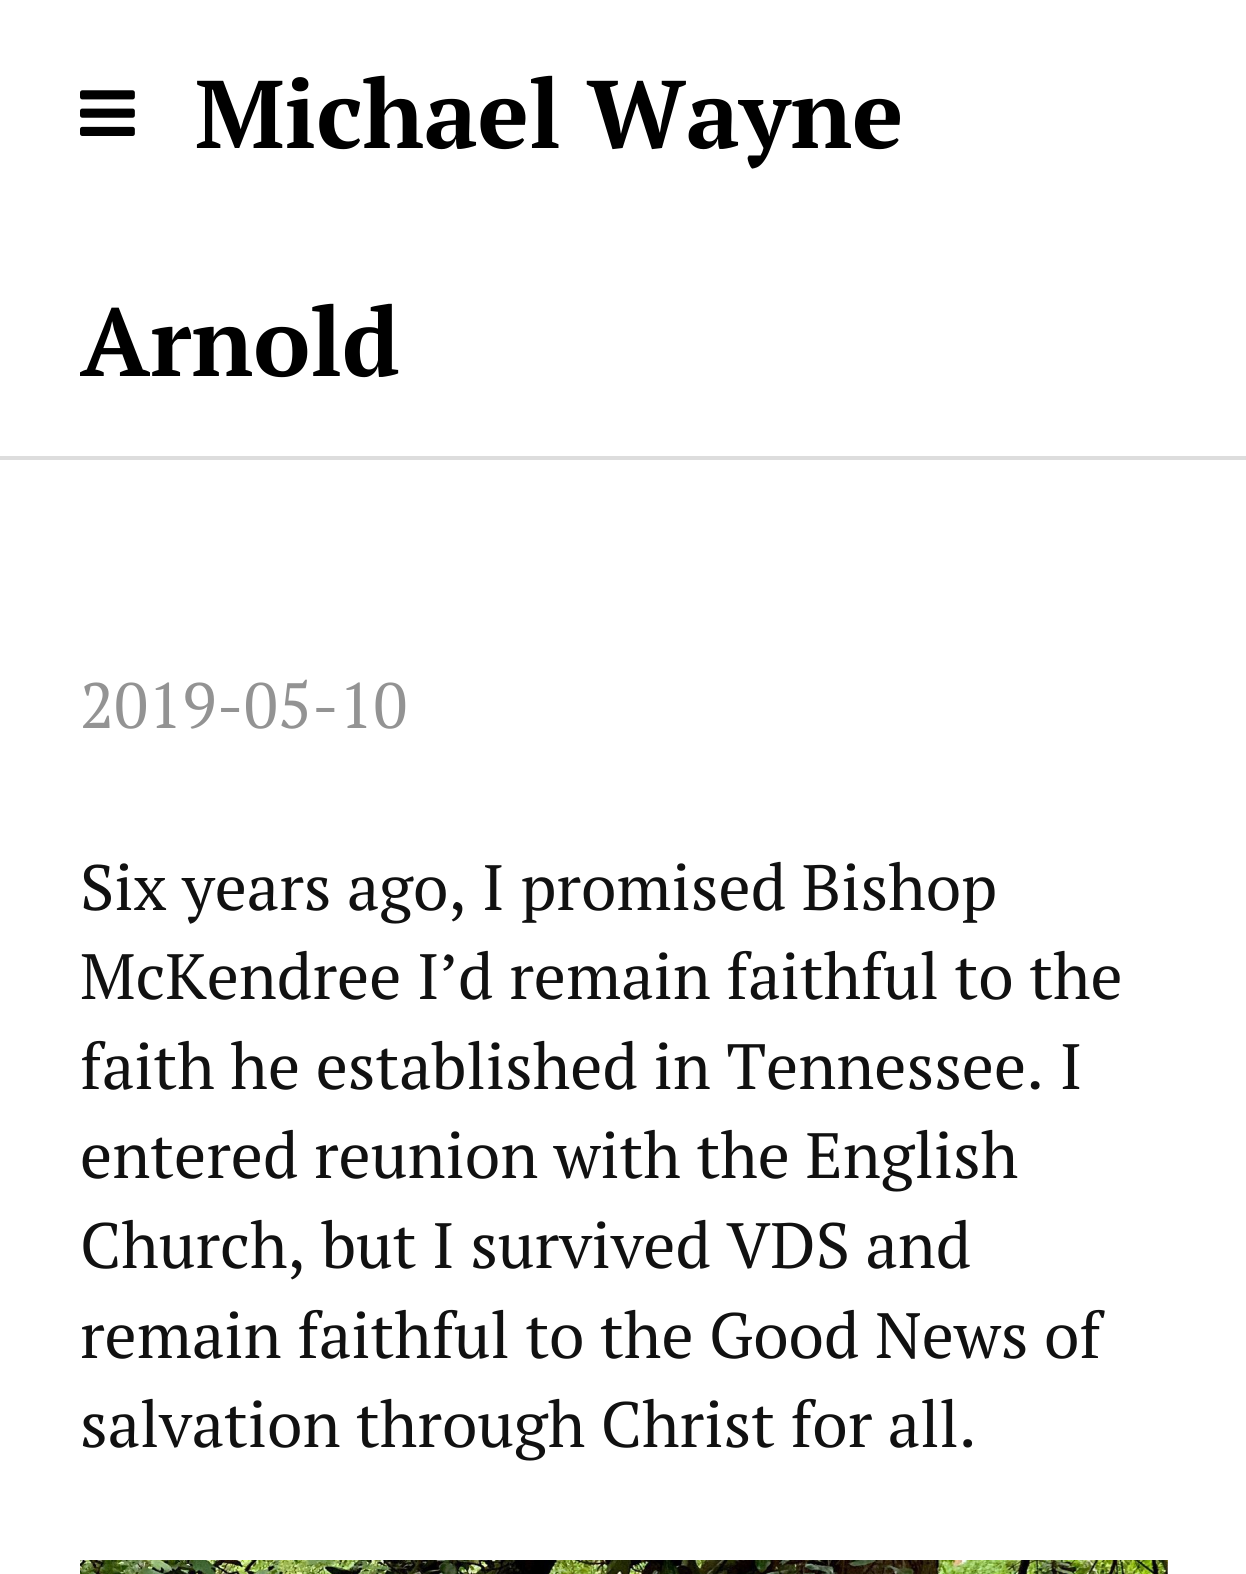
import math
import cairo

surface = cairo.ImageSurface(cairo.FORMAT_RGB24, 1246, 1574)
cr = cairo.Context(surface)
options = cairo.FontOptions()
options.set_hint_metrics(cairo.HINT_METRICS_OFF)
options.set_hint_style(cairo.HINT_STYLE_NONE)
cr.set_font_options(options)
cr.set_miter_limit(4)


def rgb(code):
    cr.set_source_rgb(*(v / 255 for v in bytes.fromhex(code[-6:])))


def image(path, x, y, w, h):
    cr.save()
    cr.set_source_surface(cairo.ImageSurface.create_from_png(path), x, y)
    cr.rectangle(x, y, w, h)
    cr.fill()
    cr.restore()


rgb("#ffffff")
cr.paint()
rgb("#dddddd")
cr.rectangle(0, 456, 1246, 4)
cr.fill()
image("img/1.png", 80, 90, 55, 46)
image("img/2.png", 80, 1560, 1088, 14)
cr.select_font_face("PT Serif", cairo.FONT_SLANT_NORMAL, cairo.FONT_WEIGHT_BOLD)
cr.set_font_size(96)
rgb("#000000")
cr.move_to(195, 148)
cr.show_text("Michael Wayne")
cr.move_to(80, 376)
cr.show_text("Arnold")
cr.select_font_face("PT Serif")
cr.set_font_size(64)
rgb("#939393")
cr.move_to(80, 728)
cr.show_text("2019-05-10")
rgb("#111111")
for x, y, s in [
    (80, 910, "Six years ago, I promised Bishop"),
    (80, 999, "McKendree I’d remain faithful to the"),
    (80, 1089, "faith he established in Tennessee. I"),
    (80, 1178, "entered reunion with the English"),
    (80, 1268, "Church, but I survived VDS and"),
    (80, 1358, "remain faithful to the Good News of"),
    (80, 1447, "salvation through Christ for all."),
]:
    cr.move_to(x, y)
    cr.show_text(s)
surface.write_to_png("page.png")
